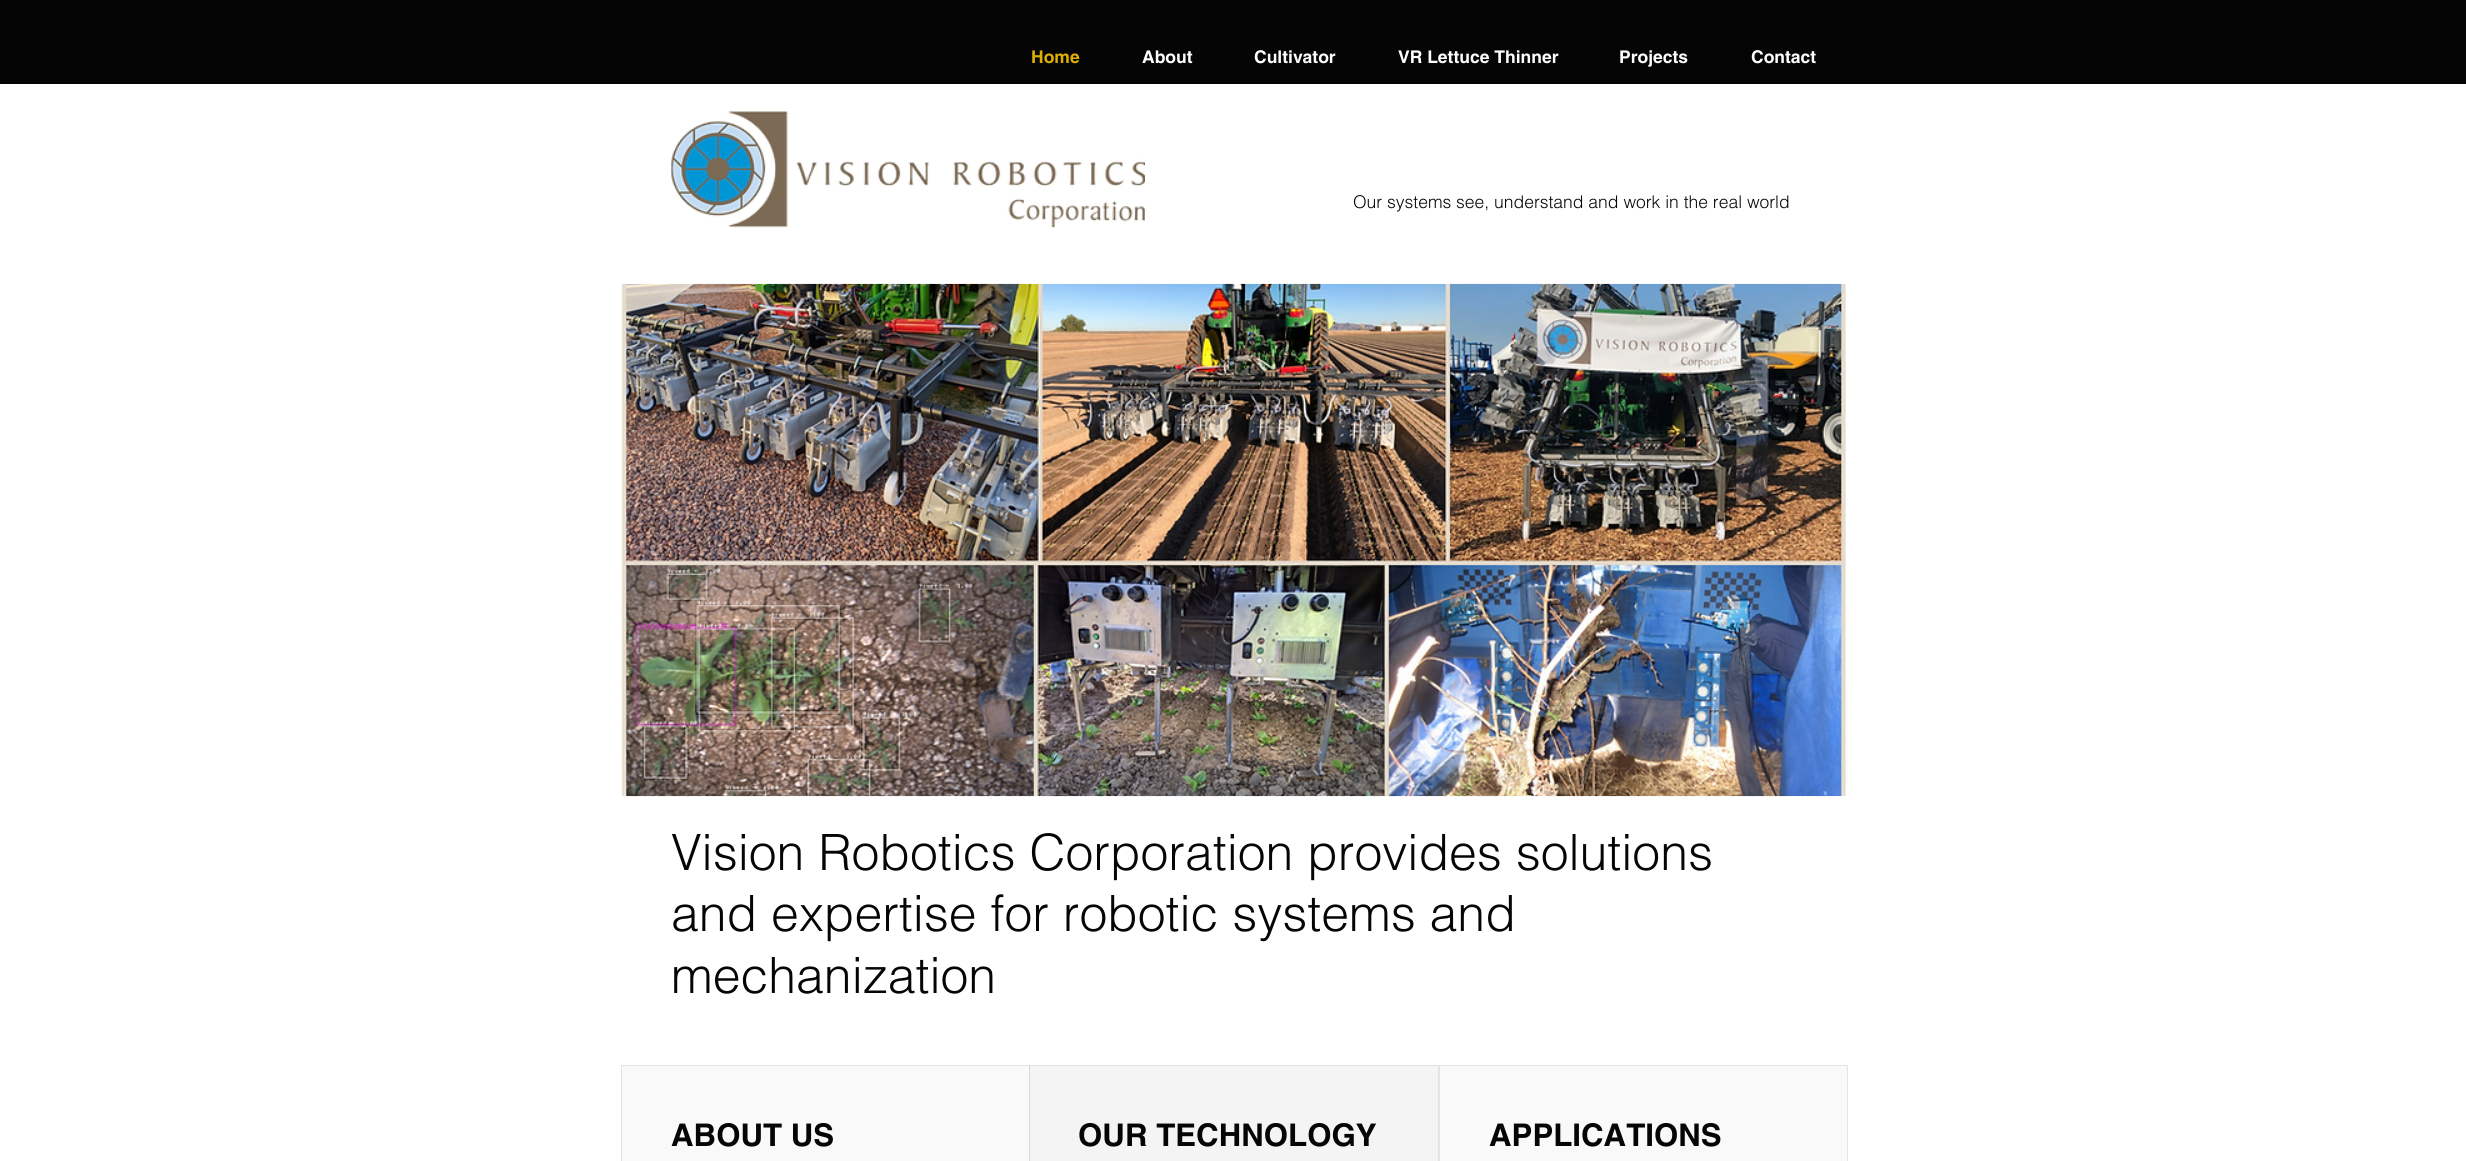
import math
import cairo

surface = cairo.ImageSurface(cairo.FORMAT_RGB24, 2466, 1161)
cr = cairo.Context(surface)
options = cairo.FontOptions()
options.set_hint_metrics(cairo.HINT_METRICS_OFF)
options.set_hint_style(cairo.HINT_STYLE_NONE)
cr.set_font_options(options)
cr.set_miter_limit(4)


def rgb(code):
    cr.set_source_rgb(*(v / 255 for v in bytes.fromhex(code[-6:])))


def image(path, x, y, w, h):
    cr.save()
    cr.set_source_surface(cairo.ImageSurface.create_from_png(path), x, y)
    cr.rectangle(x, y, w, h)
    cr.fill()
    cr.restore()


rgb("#ffffff")
cr.paint()
rgb("#050505")
cr.rectangle(0, 0, 2466, 84)
cr.fill()
image("img/1.png", 671, 111, 474, 117)
image("img/2.png", 621, 283, 1225, 514)
rgb("#f9f9f9")
cr.rectangle(621.5, 1065.5, 408, 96)
cr.fill_preserve()
rgb("#e5e5e5")
cr.set_line_width(1)
cr.stroke()
cr.set_source_rgba(0.925, 0.925, 0.925, 0.6)
cr.rectangle(1029, 1065, 410, 96)
cr.fill()
cr.rectangle(1029.5, 1065.5, 409, 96)
cr.set_source_rgba(0.455, 0.455, 0.455, 0.15)
cr.stroke()
rgb("#f9f9f9")
cr.rectangle(1439.5, 1065.5, 408, 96)
cr.fill_preserve()
rgb("#e5e5e5")
cr.stroke()
cr.select_font_face("helvetica", cairo.FONT_SLANT_NORMAL, cairo.FONT_WEIGHT_BOLD)
cr.set_font_size(17.5)
rgb("#deb100")
cr.move_to(1031, 63)
cr.show_text("Home")
rgb("#ffffff")
for x, y, s in [
    (1142, 63, "About"),
    (1254, 63, "Cultivator"),
    (1398, 63, "VR Lettuce Thinner"),
    (1619, 63, "Projects"),
    (1751, 63, "Contact"),
]:
    cr.move_to(x, y)
    cr.show_text(s)
cr.select_font_face("helvetica Light")
rgb("#050505")
cr.move_to(1353, 208)
cr.show_text("Our systems see, understand and work in the real world")
cr.set_font_size(50)
for x, y, s in [
    (671, 870, "Vision Robotics Corporation provides solutions"),
    (671, 931, "and expertise for robotic systems and"),
    (671, 993, "mechanization"),
]:
    cr.move_to(x, y)
    cr.show_text(s)
cr.select_font_face("helvetica", cairo.FONT_SLANT_NORMAL, cairo.FONT_WEIGHT_BOLD)
cr.set_font_size(31.25)
for x, y, s in [
    (671, 1146, "ABOUT US"),
    (1078, 1146, "OUR TECHNOLOGY"),
    (1489, 1146, "APPLICATIONS"),
]:
    cr.move_to(x, y)
    cr.show_text(s)
surface.write_to_png("page.png")
